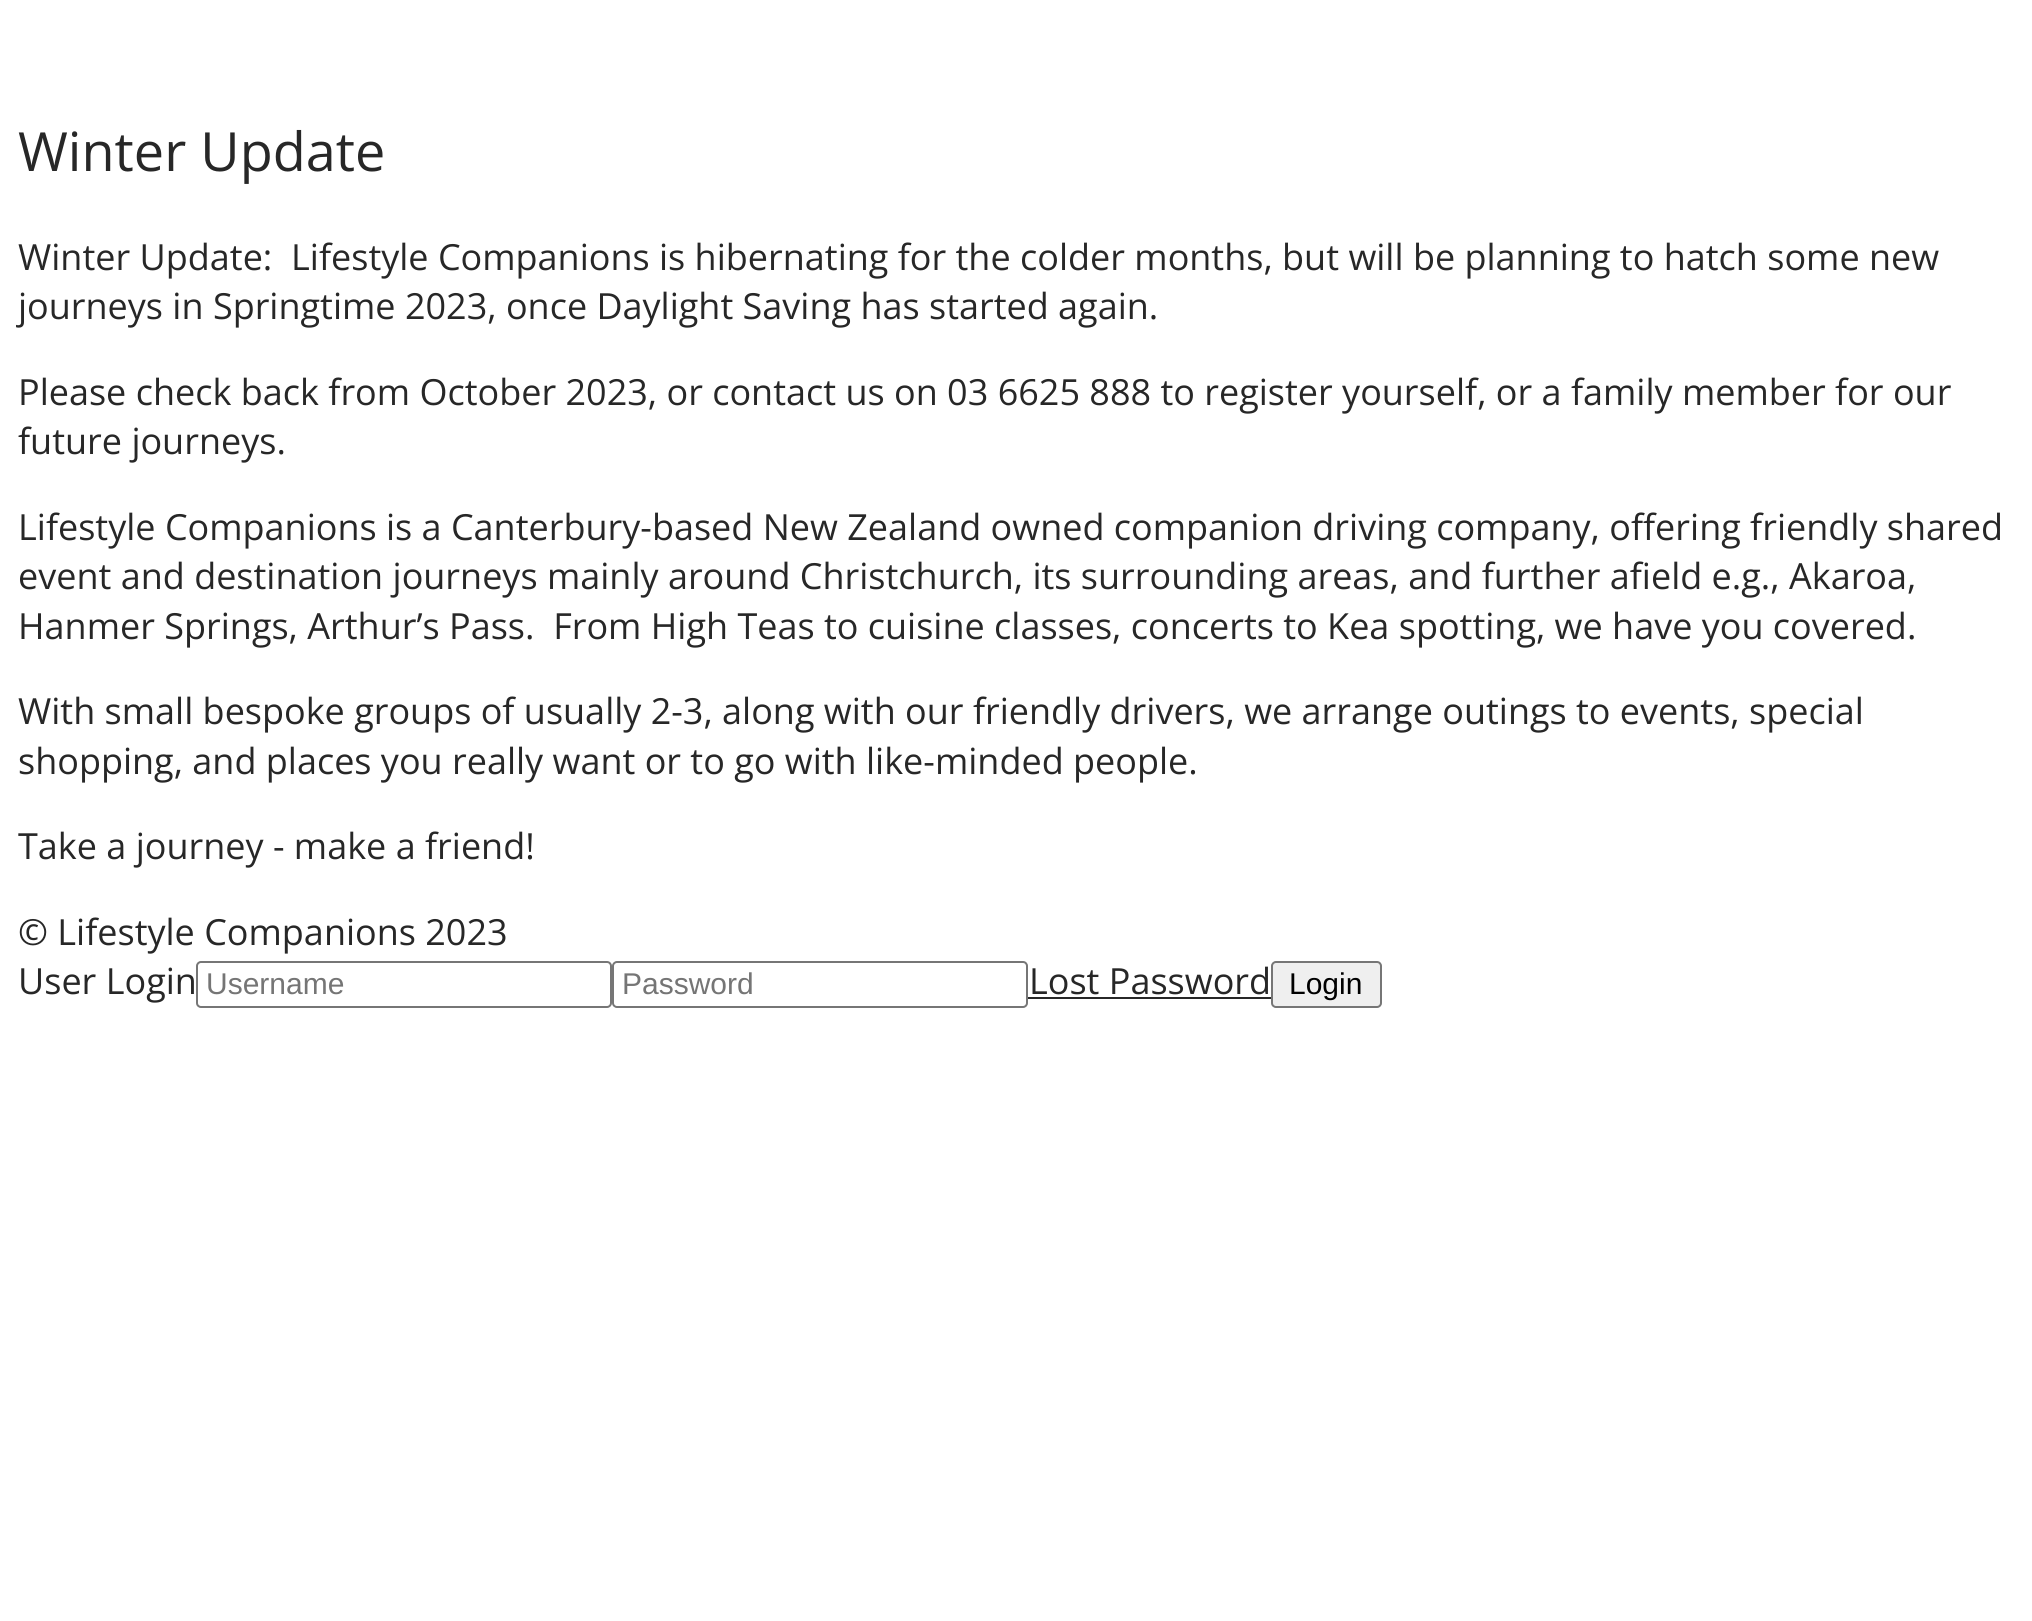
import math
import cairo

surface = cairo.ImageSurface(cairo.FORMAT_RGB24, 2032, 1621)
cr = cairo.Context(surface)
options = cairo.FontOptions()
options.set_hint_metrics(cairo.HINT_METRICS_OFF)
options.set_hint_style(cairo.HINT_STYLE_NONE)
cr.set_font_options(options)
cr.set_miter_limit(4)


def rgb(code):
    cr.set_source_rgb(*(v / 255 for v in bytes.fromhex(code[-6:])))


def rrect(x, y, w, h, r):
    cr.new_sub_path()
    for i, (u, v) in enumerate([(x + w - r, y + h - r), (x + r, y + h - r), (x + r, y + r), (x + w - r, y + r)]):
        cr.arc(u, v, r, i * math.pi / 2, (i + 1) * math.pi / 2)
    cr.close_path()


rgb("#ffffff")
cr.paint()
rrect(197, 962, 414, 45, 4)
rgb("#767676")
cr.stroke()
rrect(613, 962, 414, 45, 4)
cr.stroke()
rgb("#272727")
cr.rectangle(1028, 997, 243, 2)
cr.fill()
rgb("#efefef")
rrect(1272, 962, 109, 45, 4)
cr.fill_preserve()
rgb("#767676")
cr.stroke()
cr.select_font_face("Open Sans")
cr.set_font_size(54)
rgb("#272727")
cr.move_to(18, 171)
cr.show_text("Winter Update")
cr.set_font_size(36)
for x, y, s in [
    (18, 270, "Winter Update:  Lifestyle Companions is hibernating for the colder months, but will be planning to hatch some new"),
    (18, 319, "journeys in Springtime 2023, once Daylight Saving has started again."),
    (18, 405, "Please check back from October 2023, or contact us on 03 6625 888 to register yourself, or a family member for our"),
    (18, 454, "future journeys."),
    (18, 540, "Lifestyle Companions is a Canterbury-based New Zealand owned companion driving company, offering friendly shared"),
    (18, 589, "event and destination journeys mainly around Christchurch, its surrounding areas, and further afield e.g., Akaroa,"),
    (18, 639, "Hanmer Springs, Arthur’s Pass.  From High Teas to cuisine classes, concerts to Kea spotting, we have you covered."),
    (18, 724, "With small bespoke groups of usually 2-3, along with our friendly drivers, we arrange outings to events, special"),
    (18, 774, "shopping, and places you really want or to go with like-minded people."),
    (18, 859, "Take a journey - make a friend!"),
    (18, 945, "© Lifestyle Companions 2023"),
    (18, 994, "User Login"),
]:
    cr.move_to(x, y)
    cr.show_text(s)
cr.select_font_face("Liberation Sans")
cr.set_font_size(30)
rgb("#757575")
cr.move_to(206, 994)
cr.show_text("Username")
cr.move_to(622, 994)
cr.show_text("Password")
cr.select_font_face("Open Sans")
cr.set_font_size(36)
rgb("#272727")
cr.move_to(1029, 994)
cr.show_text("Lost Password")
cr.select_font_face("Liberation Sans")
cr.set_font_size(30)
rgb("#000000")
cr.move_to(1289, 994)
cr.show_text("Login")
surface.write_to_png("page.png")
